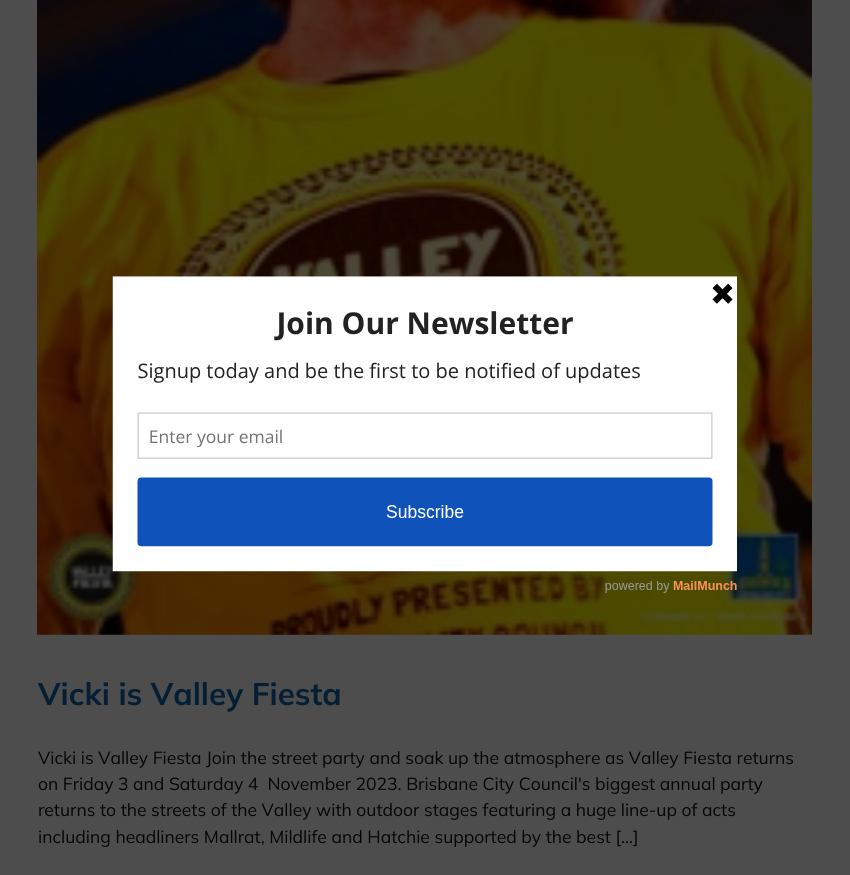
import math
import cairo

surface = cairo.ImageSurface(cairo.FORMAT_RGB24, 850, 875)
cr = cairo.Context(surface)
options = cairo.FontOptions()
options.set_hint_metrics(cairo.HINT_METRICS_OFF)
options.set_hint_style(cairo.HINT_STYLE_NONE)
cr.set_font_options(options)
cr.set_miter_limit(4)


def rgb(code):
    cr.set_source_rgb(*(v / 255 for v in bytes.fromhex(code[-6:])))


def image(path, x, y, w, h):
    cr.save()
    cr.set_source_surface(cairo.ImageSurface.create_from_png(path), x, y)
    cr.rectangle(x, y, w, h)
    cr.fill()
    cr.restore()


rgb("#4d4d4d")
cr.paint()
image("img/2.png", 37, 0, 775, 635)
image("img/1.png", 112, 276, 625, 317)
cr.select_font_face("Mulish", cairo.FONT_SLANT_NORMAL, cairo.FONT_WEIGHT_BOLD)
cr.set_font_size(31.25)
rgb("#051e33")
cr.move_to(38, 705)
cr.show_text("Vicki is Valley Fiesta")
cr.select_font_face("Mulish")
cr.set_font_size(17.5)
rgb("#050505")
for x, y, s in [
    (38, 764, "Vicki is Valley Fiesta Join the street party and soak up the atmosphere as Valley Fiesta returns"),
    (38, 790, "on Friday 3 and Saturday 4  November 2023. Brisbane City Council's biggest annual party"),
    (38, 816, "returns to the streets of the Valley with outdoor stages featuring a huge line-up of acts"),
    (38, 843, "including headliners Mallrat, Mildlife and Hatchie supported by the best [...]"),
]:
    cr.move_to(x, y)
    cr.show_text(s)
surface.write_to_png("page.png")
